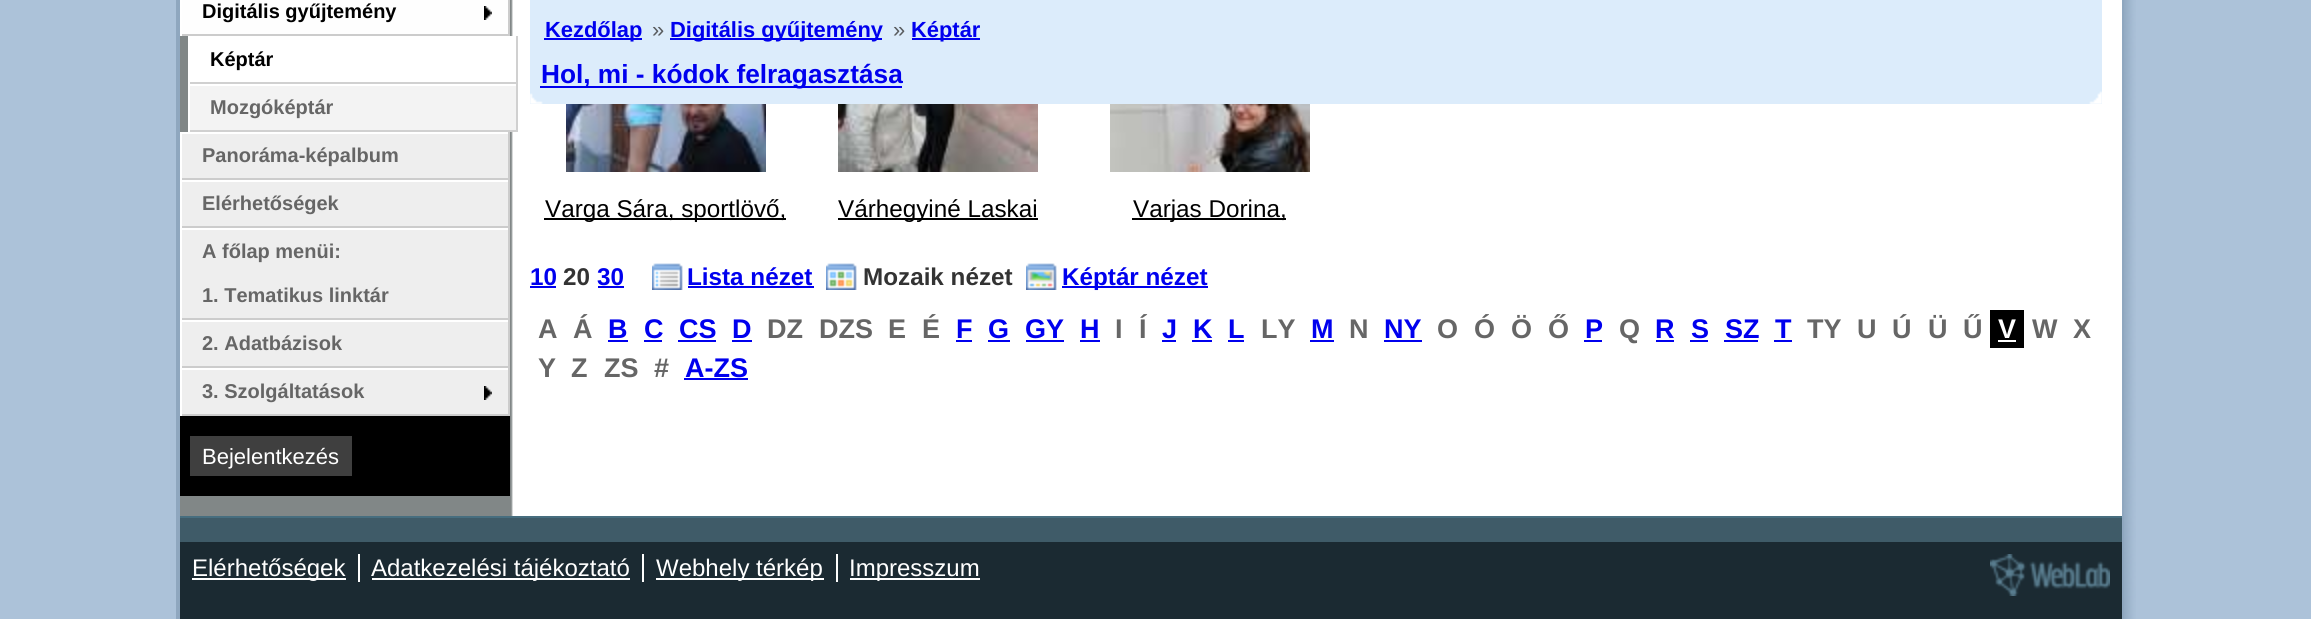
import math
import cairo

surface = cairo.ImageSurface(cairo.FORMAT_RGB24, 2311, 619)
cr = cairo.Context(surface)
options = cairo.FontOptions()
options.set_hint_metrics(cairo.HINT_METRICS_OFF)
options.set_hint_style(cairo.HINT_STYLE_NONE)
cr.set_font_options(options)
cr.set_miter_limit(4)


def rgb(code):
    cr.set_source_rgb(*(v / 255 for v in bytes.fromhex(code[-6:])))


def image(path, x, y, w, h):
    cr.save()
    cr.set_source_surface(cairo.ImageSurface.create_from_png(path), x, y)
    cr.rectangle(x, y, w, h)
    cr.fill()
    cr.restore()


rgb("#acc2d9")
cr.paint()
rgb("#8fa7bf")
cr.rectangle(176, 0, 1948, 619)
cr.fill()
image("img/1.png", 2124, 0, 12, 619)
rgb("#ffffff")
cr.rectangle(513, 0, 1609, 516)
cr.fill()
image("img/2.png", 180, 0, 333, 516)
rgb("#fefefe")
cr.rectangle(182, 0, 326, 34)
cr.fill()
image("img/3.png", 484, 6, 8, 14)
for x, y, w, h, color in [
    (508, 0, 2, 36, "#cccccc"),
    (180, 34, 330, 2, "#cccccc"),
    (180, 0, 2, 36, "#ffffff"),
    (190, 36, 323, 46, "#ffffff"),
    (516, 36, 2, 48, "#d0d0d0"),
    (188, 82, 330, 2, "#d0d0d0"),
    (188, 36, 2, 48, "#ffffff"),
    (190, 86, 326, 44, "#f3f3f3"),
    (188, 84, 330, 2, "#ffffff"),
    (516, 84, 2, 48, "#d0d0d0"),
    (188, 130, 330, 2, "#d0d0d0"),
    (188, 84, 2, 48, "#ffffff"),
    (182, 134, 326, 44, "#eeeeee"),
    (180, 132, 330, 2, "#ffffff"),
    (508, 132, 2, 48, "#cccccc"),
    (180, 178, 330, 2, "#cccccc"),
    (180, 132, 2, 48, "#ffffff"),
    (182, 182, 326, 44, "#eeeeee"),
    (180, 180, 330, 2, "#ffffff"),
    (508, 180, 2, 48, "#cccccc"),
    (180, 226, 330, 2, "#cccccc"),
    (180, 180, 2, 48, "#ffffff"),
    (182, 230, 326, 88, "#eeeeee"),
    (180, 228, 330, 2, "#ffffff"),
    (508, 228, 2, 92, "#cccccc"),
    (180, 318, 330, 2, "#cccccc"),
    (180, 228, 2, 92, "#ffffff"),
    (182, 322, 326, 44, "#eeeeee"),
    (180, 320, 330, 2, "#ffffff"),
    (508, 320, 2, 48, "#cccccc"),
    (180, 366, 330, 2, "#cccccc"),
    (180, 320, 2, 48, "#ffffff"),
    (182, 370, 326, 44, "#eeeeee"),
]:
    rgb(color)
    cr.rectangle(x, y, w, h)
    cr.fill()
image("img/4.png", 484, 386, 8, 14)
for x, y, w, h, color in [
    (180, 368, 330, 2, "#ffffff"),
    (508, 368, 2, 48, "#cccccc"),
    (180, 414, 330, 2, "#cccccc"),
    (180, 368, 2, 48, "#ffffff"),
    (180, 416, 330, 80, "#000000"),
    (190, 436, 162, 40, "#3f3f3f"),
    (530, 0, 1572, 104, "#dcecfb"),
]:
    rgb(color)
    cr.rectangle(x, y, w, h)
    cr.fill()
image("img/5.png", 530, 93, 13, 11)
image("img/6.png", 2089, 91, 13, 13)
for x, y, w, h, color in [
    (544, 38, 98, 2, "#0000ee"),
    (670, 38, 212, 2, "#0000ee"),
    (912, 38, 68, 2, "#0000ee"),
    (540, 86, 362, 2, "#0000ee"),
]:
    rgb(color)
    cr.rectangle(x, y, w, h)
    cr.fill()
image("img/7.png", 566, 104, 200, 68)
rgb("#000000")
cr.rectangle(544, 218, 242, 2)
cr.fill()
image("img/8.png", 838, 104, 200, 68)
cr.rectangle(838, 218, 200, 2)
cr.fill()
image("img/9.png", 1110, 104, 200, 68)
for x, y, w, h, color in [
    (1132, 218, 154, 2, "#000000"),
    (530, 286, 26, 2, "#0000ee"),
    (598, 286, 26, 2, "#0000ee"),
]:
    rgb(color)
    cr.rectangle(x, y, w, h)
    cr.fill()
image("img/10.png", 652, 263, 31, 27)
cr.rectangle(688, 286, 126, 2)
cr.fill()
image("img/11.png", 826, 263, 31, 27)
image("img/12.png", 1026, 263, 31, 27)
for x, y, w, h, color in [
    (1062, 286, 146, 2, "#0000ee"),
    (608, 340, 20, 2, "#0000ee"),
    (644, 340, 18, 2, "#0000ee"),
    (678, 340, 38, 2, "#0000ee"),
    (732, 340, 20, 2, "#0000ee"),
    (956, 340, 16, 2, "#0000ee"),
    (988, 340, 22, 2, "#0000ee"),
    (1026, 340, 38, 2, "#0000ee"),
    (1080, 340, 20, 2, "#0000ee"),
    (1162, 340, 14, 2, "#0000ee"),
    (1192, 340, 20, 2, "#0000ee"),
    (1228, 340, 16, 2, "#0000ee"),
    (1310, 340, 24, 2, "#0000ee"),
    (1384, 340, 38, 2, "#0000ee"),
    (1584, 340, 18, 2, "#0000ee"),
    (1656, 340, 18, 2, "#0000ee"),
    (1690, 340, 18, 2, "#0000ee"),
    (1724, 340, 34, 2, "#0000ee"),
    (1774, 340, 18, 2, "#0000ee"),
    (1990, 310, 34, 38, "#000000"),
    (1998, 340, 18, 2, "#ffffff"),
    (684, 378, 64, 2, "#0000ee"),
    (180, 542, 1942, 77, "#1b2a32"),
    (180, 518, 1942, 24, "#3f5b68"),
    (180, 516, 1942, 2, "#476e7f"),
    (192, 578, 154, 2, "#ffffff"),
    (358, 554, 2, 28, "#fefefe"),
    (642, 554, 2, 28, "#fefefe"),
    (372, 578, 258, 2, "#ffffff"),
    (836, 554, 2, 28, "#fefefe"),
    (656, 578, 168, 2, "#ffffff"),
    (850, 578, 130, 2, "#ffffff"),
]:
    rgb(color)
    cr.rectangle(x, y, w, h)
    cr.fill()
image("img/13.png", 1990, 554, 120, 42)
cr.select_font_face("Liberation Sans", cairo.FONT_SLANT_NORMAL, cairo.FONT_WEIGHT_BOLD)
cr.set_font_size(20)
rgb("#000000")
cr.move_to(202, 18)
cr.show_text("Digitális gyűjtemény")
cr.move_to(210, 66)
cr.show_text("Képtár")
rgb("#666666")
for x, y, s in [
    (210, 114, "Mozgóképtár"),
    (202, 162, "Panoráma-képalbum"),
    (202, 210, "Elérhetőségek"),
    (202, 258, "A főlap menüi:"),
    (202, 302, "1. Tematikus linktár"),
    (202, 350, "2. Adatbázisok"),
    (202, 398, "3. Szolgáltatások"),
]:
    cr.move_to(x, y)
    cr.show_text(s)
cr.select_font_face("Liberation Sans")
cr.set_font_size(22)
rgb("#ffffff")
cr.move_to(202, 464)
cr.show_text("Bejelentkezés")
cr.select_font_face("Liberation Sans", cairo.FONT_SLANT_NORMAL, cairo.FONT_WEIGHT_BOLD)
cr.set_font_size(21.9)
rgb("#0000ee")
cr.move_to(545, 37)
cr.show_text("Kezdőlap")
cr.select_font_face("Liberation Sans")
rgb("#595c5f")
cr.move_to(652, 37)
cr.show_text("»")
cr.select_font_face("Liberation Sans", cairo.FONT_SLANT_NORMAL, cairo.FONT_WEIGHT_BOLD)
rgb("#0000ee")
cr.move_to(670, 37)
cr.show_text("Digitális gyűjtemény")
cr.select_font_face("Liberation Sans")
rgb("#595c5f")
cr.move_to(893, 37)
cr.show_text("»")
cr.select_font_face("Liberation Sans", cairo.FONT_SLANT_NORMAL, cairo.FONT_WEIGHT_BOLD)
rgb("#0000ee")
cr.move_to(911, 37)
cr.show_text("Képtár")
cr.set_font_size(26.25)
cr.move_to(541, 83)
cr.show_text("Hol, mi - kódok felragasztása")
cr.select_font_face("Liberation Sans")
cr.set_font_size(24.25)
rgb("#000000")
for x, y, s in [
    (545, 217, "Varga Sára, sportlövő,"),
    (838, 217, "Várhegyiné Laskai"),
    (1133, 217, "Varjas Dorina,"),
]:
    cr.move_to(x, y)
    cr.show_text(s)
cr.select_font_face("Liberation Sans", cairo.FONT_SLANT_NORMAL, cairo.FONT_WEIGHT_BOLD)
rgb("#0000ee")
cr.move_to(530, 285)
cr.show_text("10")
rgb("#333333")
cr.move_to(563, 285)
cr.show_text("20")
rgb("#0000ee")
cr.move_to(597, 285)
cr.show_text("30")
cr.move_to(687, 285)
cr.show_text("Lista nézet")
rgb("#333333")
cr.move_to(863, 285)
cr.show_text("Mozaik nézet")
rgb("#0000ee")
cr.move_to(1062, 285)
cr.show_text("Képtár nézet")
cr.set_font_size(27)
rgb("#666666")
cr.move_to(538, 338)
cr.show_text("A")
cr.move_to(573, 338)
cr.show_text("Á")
rgb("#0000ee")
for x, y, s in [
    (608, 338, "B"),
    (644, 338, "C"),
    (679, 338, "CS"),
    (732, 338, "D"),
]:
    cr.move_to(x, y)
    cr.show_text(s)
rgb("#666666")
for x, y, s in [
    (767, 338, "DZ"),
    (819, 338, "DZS"),
    (888, 338, "E"),
    (922, 338, "É"),
]:
    cr.move_to(x, y)
    cr.show_text(s)
rgb("#0000ee")
for x, y, s in [
    (956, 338, "F"),
    (988, 338, "G"),
    (1025, 338, "GY"),
    (1080, 338, "H"),
]:
    cr.move_to(x, y)
    cr.show_text(s)
rgb("#666666")
cr.move_to(1115, 338)
cr.show_text("I")
cr.move_to(1139, 338)
cr.show_text("Í")
rgb("#0000ee")
for x, y, s in [
    (1162, 338, "J"),
    (1193, 338, "K"),
    (1228, 338, "L"),
]:
    cr.move_to(x, y)
    cr.show_text(s)
rgb("#666666")
cr.move_to(1261, 338)
cr.show_text("LY")
rgb("#0000ee")
cr.move_to(1311, 338)
cr.show_text("M")
rgb("#666666")
cr.move_to(1349, 338)
cr.show_text("N")
rgb("#0000ee")
cr.move_to(1384, 338)
cr.show_text("NY")
rgb("#666666")
for x, y, s in [
    (1437, 338, "O"),
    (1474, 338, "Ó"),
    (1511, 338, "Ö"),
    (1548, 338, "Ő"),
]:
    cr.move_to(x, y)
    cr.show_text(s)
rgb("#0000ee")
cr.move_to(1585, 338)
cr.show_text("P")
rgb("#666666")
cr.move_to(1619, 338)
cr.show_text("Q")
rgb("#0000ee")
for x, y, s in [
    (1655, 338, "R"),
    (1691, 338, "S"),
    (1725, 338, "SZ"),
    (1775, 338, "T"),
]:
    cr.move_to(x, y)
    cr.show_text(s)
rgb("#666666")
for x, y, s in [
    (1807, 338, "TY"),
    (1857, 338, "U"),
    (1892, 338, "Ú"),
    (1928, 338, "Ü"),
    (1963, 338, "Ű"),
]:
    cr.move_to(x, y)
    cr.show_text(s)
rgb("#ffffff")
cr.move_to(1998, 338)
cr.show_text("V")
rgb("#666666")
for x, y, s in [
    (2032, 338, "W"),
    (2073, 338, "X"),
    (538, 377, "Y"),
    (571, 377, "Z"),
    (604, 377, "ZS"),
    (654, 377, "#"),
]:
    cr.move_to(x, y)
    cr.show_text(s)
rgb("#0000ee")
cr.move_to(685, 377)
cr.show_text("A-ZS")
cr.select_font_face("Liberation Sans")
cr.set_font_size(24)
rgb("#ffffff")
for x, y, s in [
    (192, 576, "Elérhetőségek"),
    (371, 576, "Adatkezelési tájékoztató"),
    (656, 576, "Webhely térkép"),
    (849, 576, "Impresszum"),
]:
    cr.move_to(x, y)
    cr.show_text(s)
surface.write_to_png("page.png")
